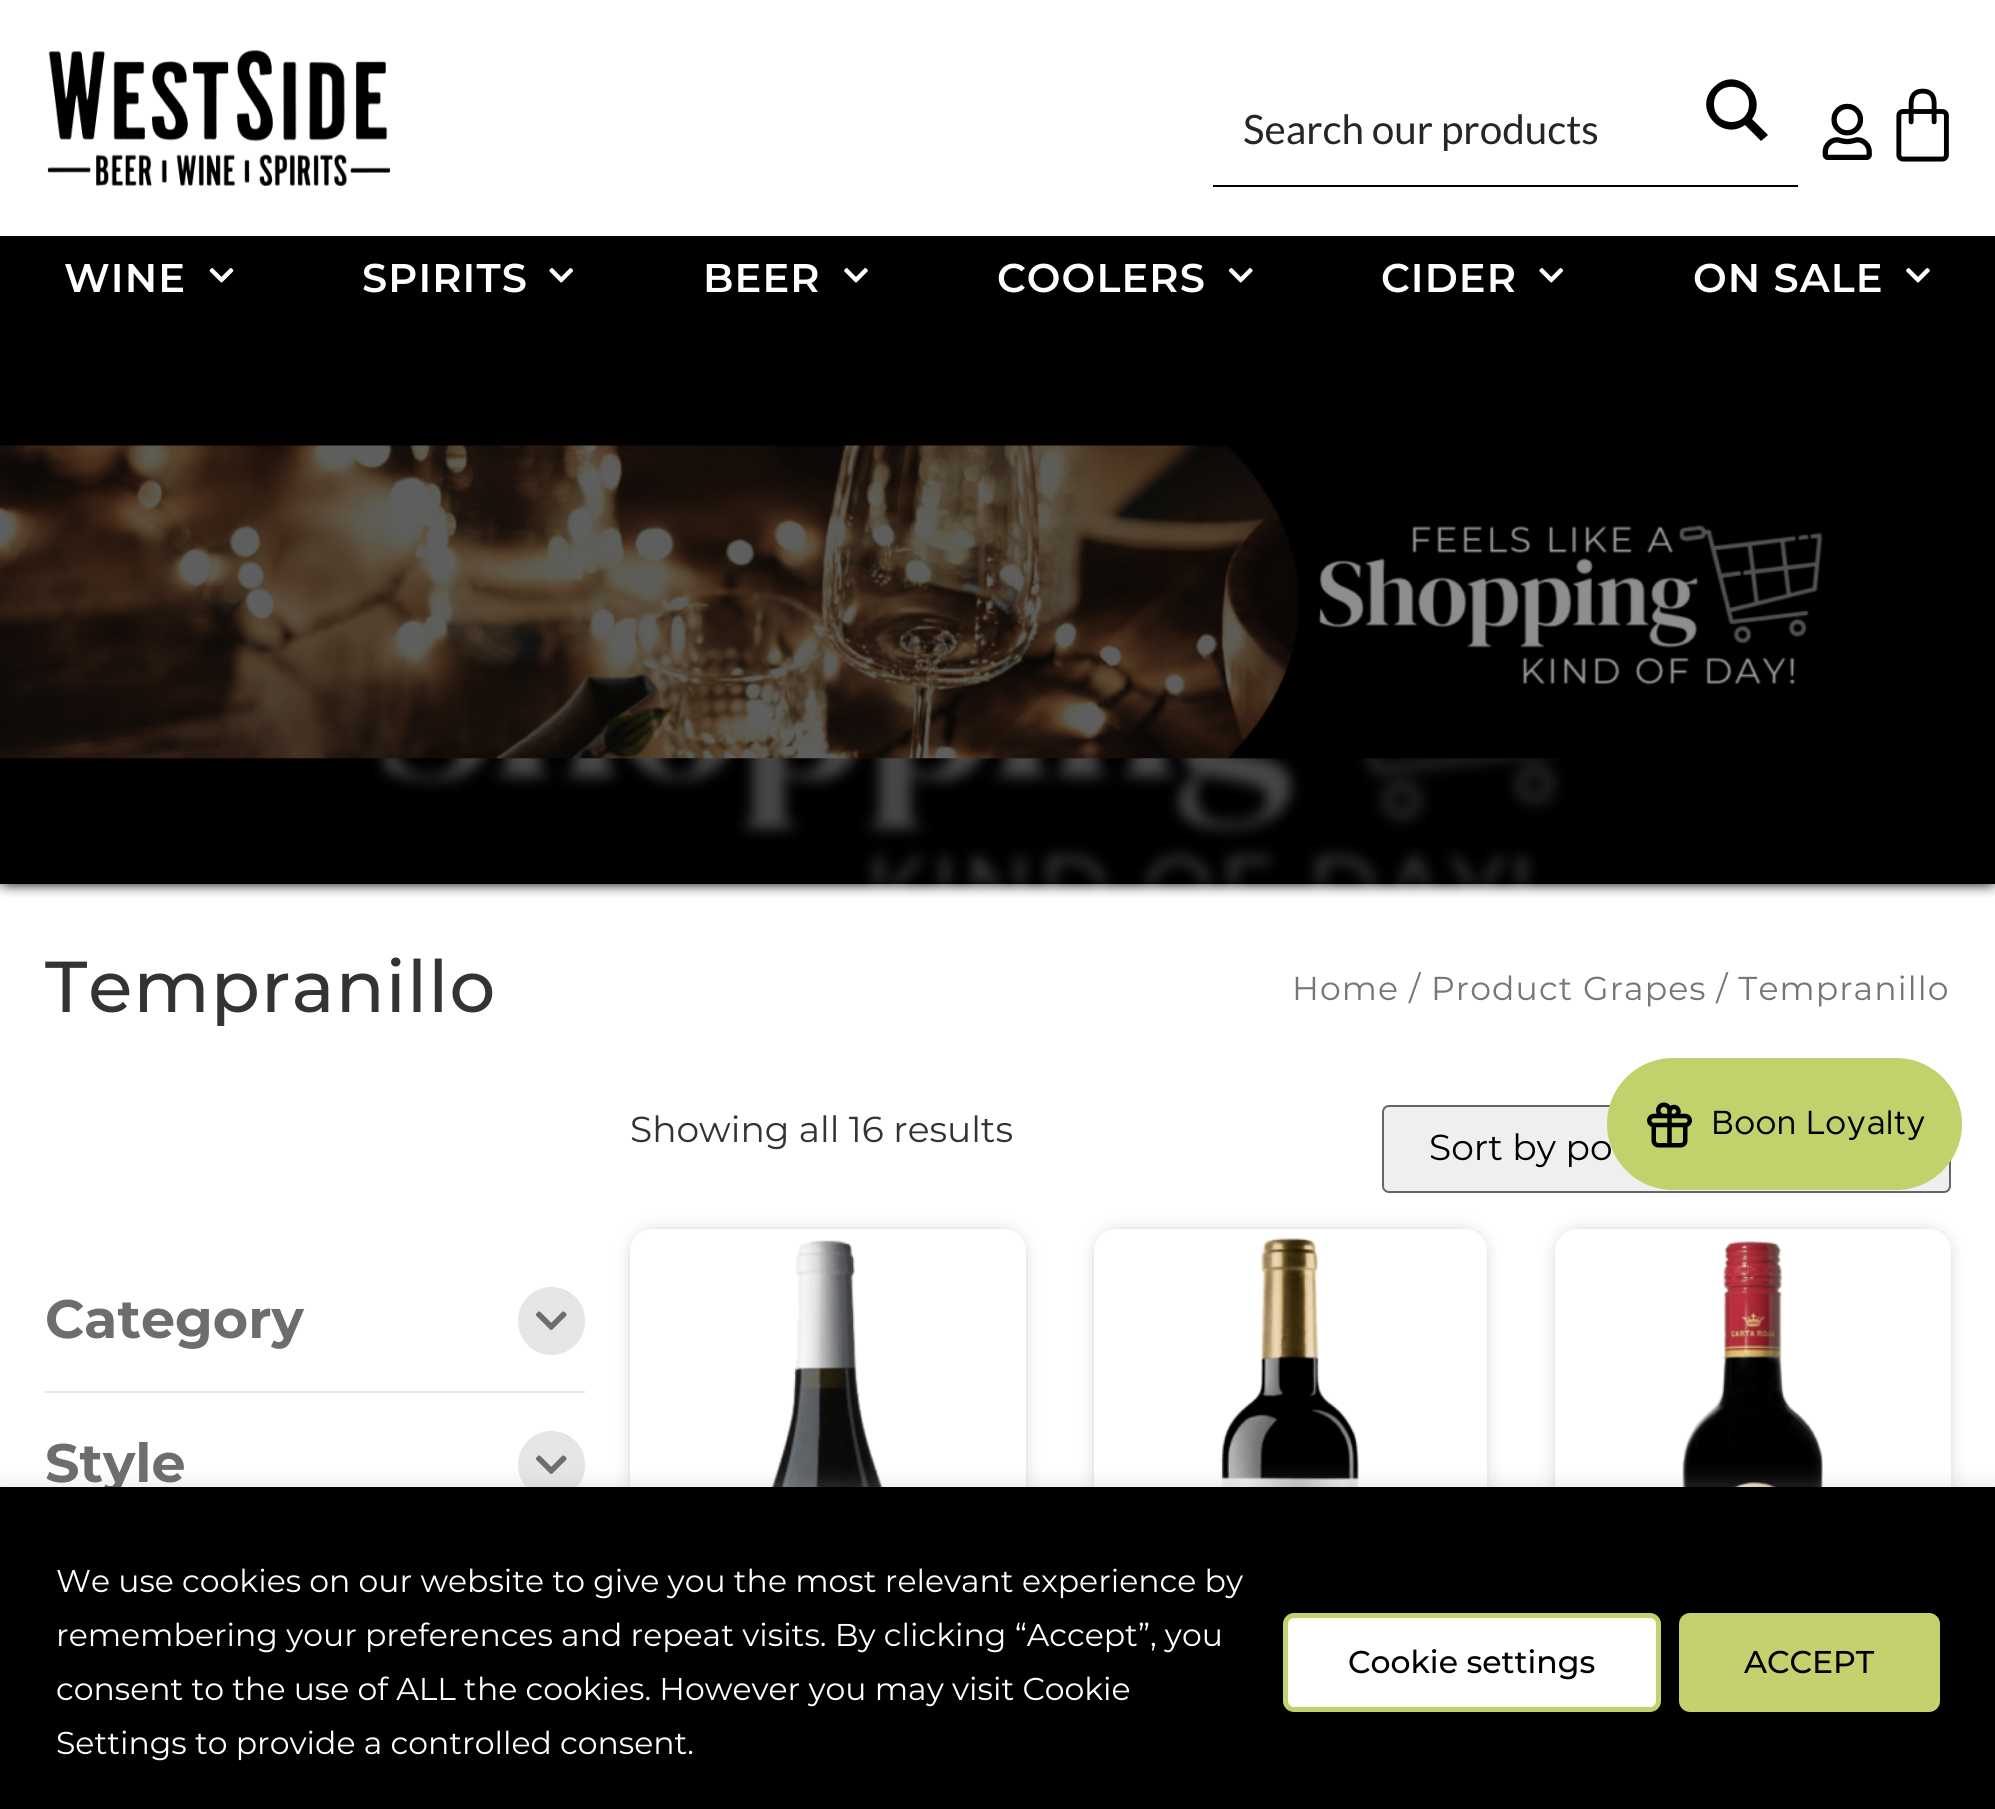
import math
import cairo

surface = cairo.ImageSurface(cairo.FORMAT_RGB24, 1995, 1809)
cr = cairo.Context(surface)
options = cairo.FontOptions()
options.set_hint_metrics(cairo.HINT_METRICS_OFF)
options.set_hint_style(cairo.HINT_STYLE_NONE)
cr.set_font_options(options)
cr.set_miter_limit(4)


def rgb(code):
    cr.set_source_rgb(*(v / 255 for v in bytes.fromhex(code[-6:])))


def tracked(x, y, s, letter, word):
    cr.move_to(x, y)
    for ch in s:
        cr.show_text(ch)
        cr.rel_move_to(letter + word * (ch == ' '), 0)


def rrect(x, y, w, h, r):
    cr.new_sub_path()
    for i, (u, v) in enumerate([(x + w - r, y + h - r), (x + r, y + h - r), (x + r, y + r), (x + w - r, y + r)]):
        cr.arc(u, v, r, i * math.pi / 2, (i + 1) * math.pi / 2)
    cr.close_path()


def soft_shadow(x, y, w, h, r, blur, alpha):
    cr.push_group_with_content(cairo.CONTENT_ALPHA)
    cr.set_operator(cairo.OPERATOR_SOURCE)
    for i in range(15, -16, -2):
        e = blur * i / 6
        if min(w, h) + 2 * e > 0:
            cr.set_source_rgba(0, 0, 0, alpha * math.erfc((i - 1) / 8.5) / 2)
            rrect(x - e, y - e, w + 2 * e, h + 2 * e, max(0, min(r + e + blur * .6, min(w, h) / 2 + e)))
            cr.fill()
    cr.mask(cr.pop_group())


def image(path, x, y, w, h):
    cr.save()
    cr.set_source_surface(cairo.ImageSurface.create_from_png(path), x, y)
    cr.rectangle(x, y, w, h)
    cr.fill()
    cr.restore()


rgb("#ffffff")
cr.paint()
image("img/1.png", 47, 50, 343, 136)
rgb("#000000")
cr.new_path()
cr.move_to(1213, 184)
cr.line_to(1213, 187)
cr.line_to(1798, 187)
cr.line_to(1798, 68)
cr.line_to(1798, 184)
cr.close_path()
cr.fill()
rgb("#ffffff")
cr.rectangle(1213, 184, 585, 1)
cr.fill()
rgb("#000000")
cr.new_path()
cr.move_to(1768, 135)
cr.line_to(1752, 119)
cr.curve_to(1769, 95, 1736, 65, 1714, 87)
cr.curve_to(1692, 108, 1721, 142, 1745, 125)
cr.line_to(1761, 141)
cr.close_path()
cr.move_to(1714, 104)
cr.curve_to(1714, 81, 1749, 81, 1749, 104)
cr.curve_to(1749, 128, 1714, 128, 1714, 104)
cr.close_path()
cr.fill()
image("img/2.png", 1822, 103, 50, 57)
image("img/3.png", 1896, 88, 53, 74)
cr.rectangle(0, 236, 1995, 648)
cr.fill()
image("img/4.png", 209, 268, 25, 15)
image("img/5.png", 549, 268, 25, 15)
image("img/6.png", 844, 268, 24, 15)
image("img/7.png", 1228, 268, 25, 15)
image("img/5.png", 1539, 268, 25, 15)
image("img/6.png", 1906, 268, 24, 15)
image("img/8.png", 0, 322, 1995, 575)
image("img/9.png", 0, 445, 1823, 314)
rgb("#efefef")
rrect(1383, 1106, 567, 86, 6)
cr.fill_preserve()
rgb("#666666")
cr.stroke()
cr.save()
cr.set_fill_rule(cairo.FILL_RULE_EVEN_ODD)
cr.new_path()
cr.move_to(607, 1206)
cr.line_to(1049, 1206)
cr.line_to(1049, 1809)
cr.line_to(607, 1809)
cr.close_path()
cr.move_to(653, 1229)
cr.line_to(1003, 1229)
cr.curve_to(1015.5, 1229, 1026, 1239.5, 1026, 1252)
cr.line_to(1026, 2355)
cr.curve_to(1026, 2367.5, 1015.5, 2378, 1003, 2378)
cr.line_to(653, 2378)
cr.curve_to(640.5, 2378, 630, 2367.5, 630, 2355)
cr.line_to(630, 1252)
cr.curve_to(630, 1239.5, 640.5, 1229, 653, 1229)
cr.close_path()
cr.clip()
rgb("#000000")
soft_shadow(641, 1240, 374, 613, 11, 11, 0.5)
cr.restore()
image("img/10.png", 771, 1240, 113, 247)
cr.save()
cr.set_fill_rule(cairo.FILL_RULE_EVEN_ODD)
cr.new_path()
cr.move_to(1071, 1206)
cr.line_to(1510, 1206)
cr.line_to(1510, 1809)
cr.line_to(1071, 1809)
cr.close_path()
cr.move_to(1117, 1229)
cr.line_to(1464, 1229)
cr.curve_to(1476.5, 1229, 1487, 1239.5, 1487, 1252)
cr.line_to(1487, 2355)
cr.curve_to(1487, 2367.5, 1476.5, 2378, 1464, 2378)
cr.line_to(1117, 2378)
cr.curve_to(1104.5, 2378, 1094, 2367.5, 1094, 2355)
cr.line_to(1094, 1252)
cr.curve_to(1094, 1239.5, 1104.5, 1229, 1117, 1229)
cr.close_path()
cr.clip()
rgb("#000000")
soft_shadow(1105, 1240, 371, 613, 11, 11, 0.5)
cr.restore()
image("img/11.png", 1220, 1237, 140, 250)
cr.save()
cr.set_fill_rule(cairo.FILL_RULE_EVEN_ODD)
cr.new_path()
cr.move_to(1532, 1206)
cr.line_to(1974, 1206)
cr.line_to(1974, 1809)
cr.line_to(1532, 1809)
cr.close_path()
cr.move_to(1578, 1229)
cr.line_to(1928, 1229)
cr.curve_to(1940.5, 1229, 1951, 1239.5, 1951, 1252)
cr.line_to(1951, 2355)
cr.curve_to(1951, 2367.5, 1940.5, 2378, 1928, 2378)
cr.line_to(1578, 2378)
cr.curve_to(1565.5, 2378, 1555, 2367.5, 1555, 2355)
cr.line_to(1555, 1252)
cr.curve_to(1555, 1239.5, 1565.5, 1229, 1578, 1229)
cr.close_path()
cr.clip()
rgb("#000000")
soft_shadow(1566, 1240, 374, 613, 11, 11, 0.5)
cr.restore()
image("img/12.png", 1682, 1241, 141, 246)
rgb("#e6e6e6")
cr.rectangle(45, 1391, 540, 2)
cr.fill()
rrect(518, 1287, 67, 68, 33.5)
cr.fill()
image("img/13.png", 536, 1311, 31, 20)
rrect(518, 1431, 67, 68, 33.5)
cr.fill()
image("img/13.png", 536, 1455, 31, 20)
rgb("#acabab")
soft_shadow(0, 1485, 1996, 322, 0, 11, 0.3)
cr.select_font_face("Lato")
cr.set_font_size(40.5)
rgb("#262626")
cr.move_to(1243, 144)
cr.show_text("Search our products")
cr.select_font_face("Montserrat SemiBold")
cr.set_font_size(40)
rgb("#ffffff")
for x, y, s in [
    (64, 292, "WINE"),
    (362, 292, "SPIRITS"),
    (703, 292, "BEER"),
    (997, 292, "COOLERS"),
    (1381, 292, "CIDER"),
    (1693, 292, "ON SALE"),
]:
    tracked(x, y, s, 1.1, 0)
cr.select_font_face("Montserrat Medium")
cr.set_font_size(72)
rgb("#333333")
tracked(45, 1012, "Tempranillo", 1.1, 0)
cr.select_font_face("Montserrat")
cr.set_font_size(33.1)
rgb("#767676")
tracked(1292, 1000, "Home / Product Grapes / Tempranillo", 1.1, 0)
cr.set_font_size(36)
rgb("#333333")
cr.move_to(630, 1142)
cr.show_text("Showing all 16 results")
rgb("#000000")
cr.move_to(1429, 1160)
cr.show_text("Sort by po")
cr.select_font_face("Montserrat", cairo.FONT_SLANT_NORMAL, cairo.FONT_WEIGHT_BOLD)
cr.set_font_size(54)
rgb("#6d6d6d")
cr.move_to(45, 1338)
cr.show_text("Category")
cr.move_to(45, 1482)
cr.show_text("Style")
rgb("#c3d16d")
rrect(1607, 1058, 355, 132, 66)
cr.fill()
image("img/14.png", 1647, 1102, 45, 46)
cr.select_font_face("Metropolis")
cr.set_font_size(33.75)
rgb("#000000")
cr.move_to(1711, 1134)
cr.show_text("Boon Loyalty")
cr.rectangle(0, 1487, 1995, 322)
cr.fill()
cr.select_font_face("Montserrat")
cr.set_font_size(31.5)
rgb("#ffffff")
for x, y, s in [
    (56, 1592, "We use cookies on our website to give you the most relevant experience by"),
    (56, 1646, "remembering your preferences and repeat visits. By clicking “Accept”, you"),
    (56, 1700, "consent to the use of ALL the cookies. However you may visit Cookie"),
    (56, 1754, "Settings to provide a controlled consent."),
]:
    cr.move_to(x, y)
    cr.show_text(s)
rrect(1285.5, 1615.5, 373, 94, 8.5)
cr.fill_preserve()
rgb("#c4d16e")
cr.set_line_width(5)
cr.stroke()
cr.select_font_face("Montserrat Medium")
rgb("#000000")
cr.move_to(1348, 1673)
cr.show_text("Cookie settings")
rgb("#c4d16e")
rrect(1681.5, 1615.5, 256, 94, 8.5)
cr.fill_preserve()
cr.stroke()
rgb("#000000")
cr.move_to(1744, 1673)
cr.show_text("ACCEPT")
surface.write_to_png("page.png")
